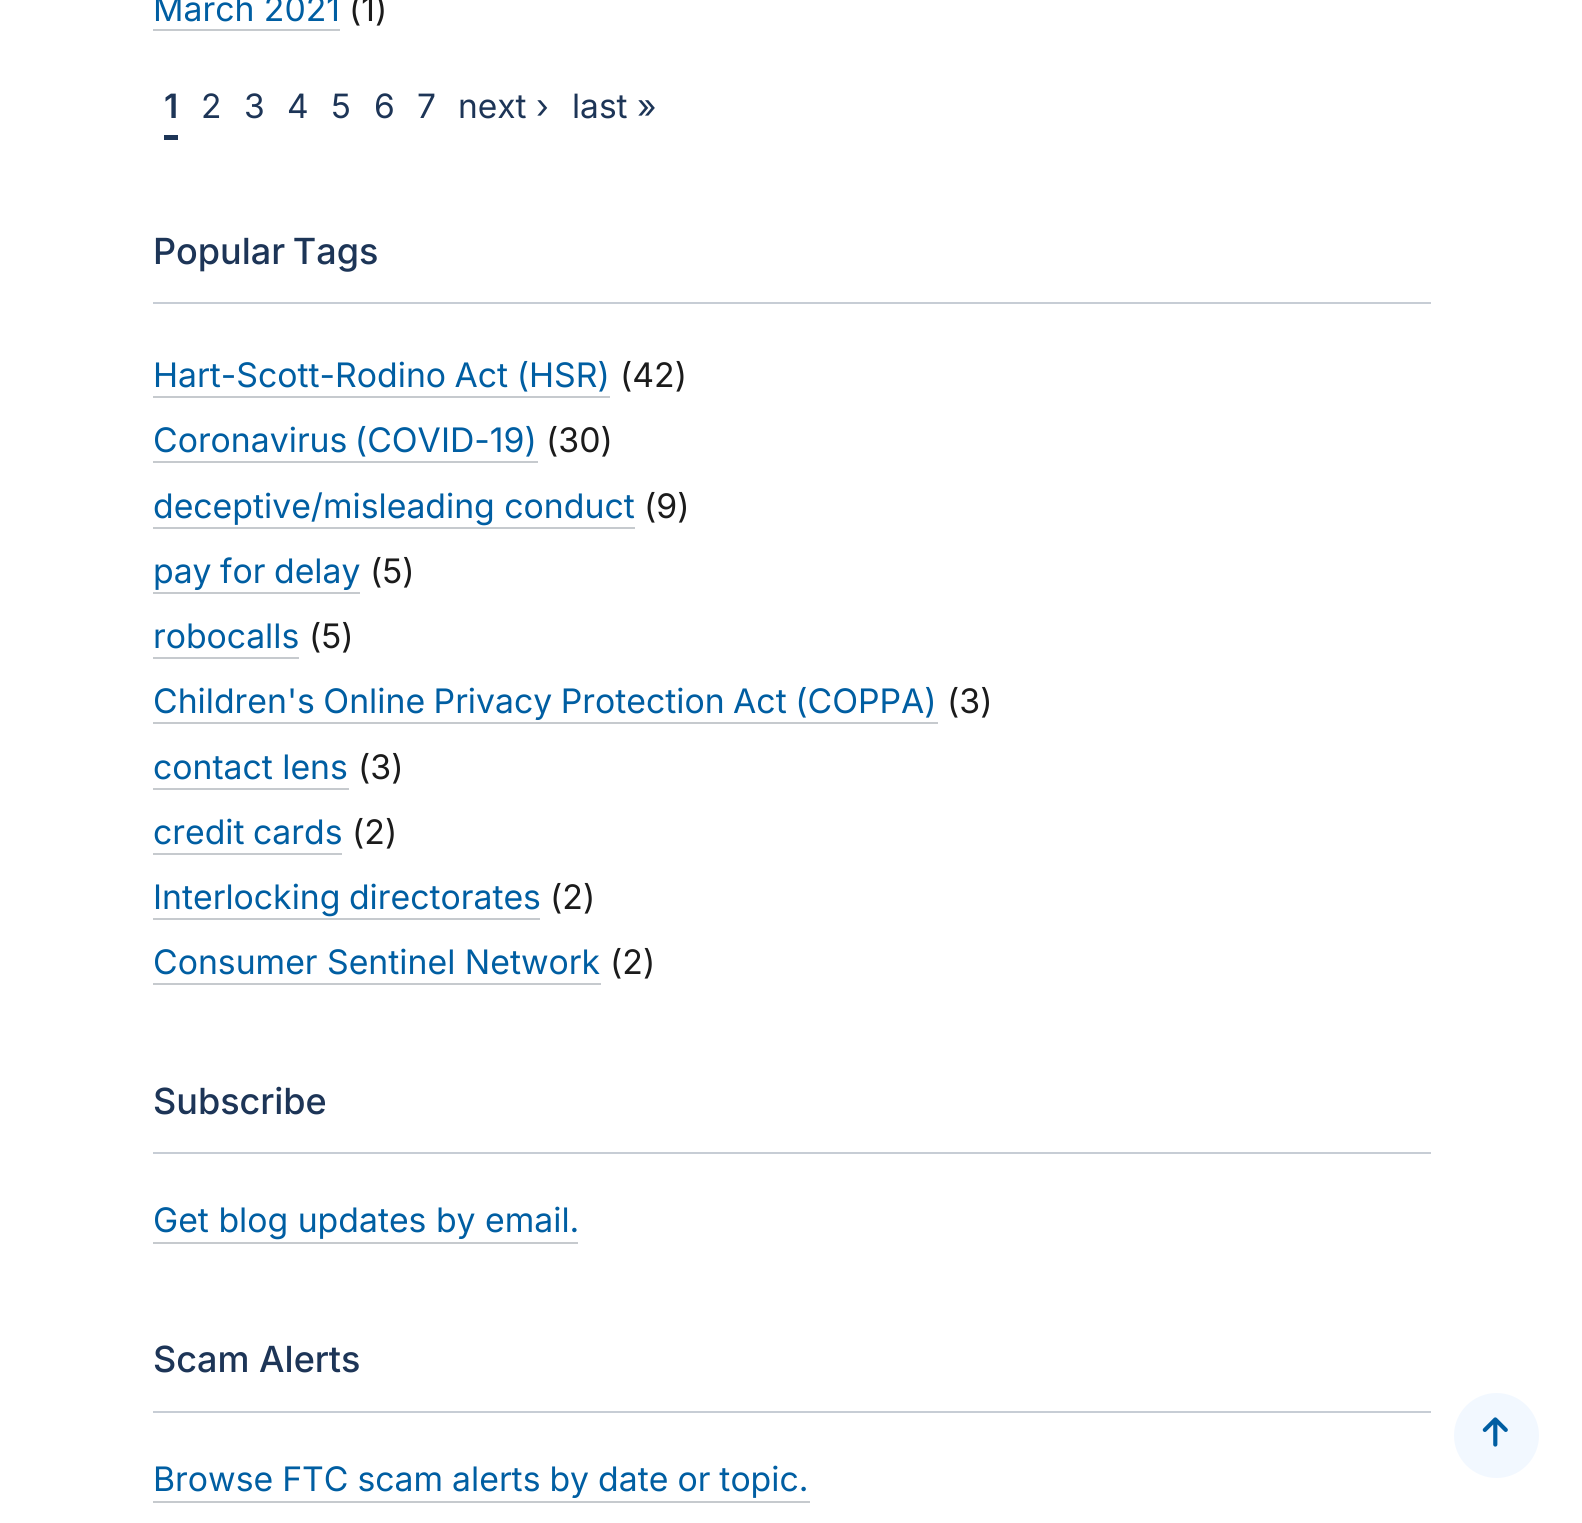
import math
import cairo

surface = cairo.ImageSurface(cairo.FORMAT_RGB24, 1582, 1523)
cr = cairo.Context(surface)
options = cairo.FontOptions()
options.set_hint_metrics(cairo.HINT_METRICS_OFF)
options.set_hint_style(cairo.HINT_STYLE_NONE)
cr.set_font_options(options)
cr.set_miter_limit(4)


def rgb(code):
    cr.set_source_rgb(*(v / 255 for v in bytes.fromhex(code[-6:])))


def tracked(x, y, s, letter, word):
    cr.move_to(x, y)
    for ch in s:
        cr.show_text(ch)
        cr.rel_move_to(letter + word * (ch == ' '), 0)


def image(path, x, y, w, h):
    cr.save()
    cr.set_source_surface(cairo.ImageSurface.create_from_png(path), x, y)
    cr.rectangle(x, y, w, h)
    cr.fill()
    cr.restore()


rgb("#ffffff")
cr.paint()
for x, y, w, h, color in [
    (153, 29, 187, 2, "#c6cace"),
    (164, 135, 14, 5, "#1d3557"),
    (153, 302, 1278, 2, "#c7cdd5"),
    (153, 396, 457, 2, "#c6cace"),
    (153, 461, 385, 2, "#c6cace"),
    (153, 527, 482, 2, "#c6cace"),
    (153, 592, 207, 2, "#c6cace"),
    (153, 657, 146, 2, "#c6cace"),
    (153, 722, 785, 2, "#c6cace"),
    (153, 788, 196, 2, "#c6cace"),
    (153, 853, 189, 2, "#c6cace"),
    (153, 918, 387, 2, "#c6cace"),
    (153, 983, 448, 2, "#c6cace"),
    (153, 1152, 1278, 2, "#c7cdd5"),
    (153, 1242, 425, 2, "#c6cace"),
    (153, 1411, 1278, 2, "#c7cdd5"),
    (153, 1501, 657, 2, "#c6cace"),
]:
    rgb(color)
    cr.rectangle(x, y, w, h)
    cr.fill()
rgb("#f2f8ff")
cr.arc(1496.5, 1435.5, 42.5, 0, 2 * math.pi)
cr.fill()
image("img/1.png", 1482, 1417, 26, 30)
cr.select_font_face("Inter")
cr.set_font_size(33.75)
rgb("#005ea2")
cr.move_to(153, 21)
cr.show_text("March 2021")
rgb("#1b1b1b")
cr.move_to(349, 21)
cr.show_text("(1)")
cr.select_font_face("Inter SemiBold")
cr.set_font_size(33.5)
rgb("#1d3557")
cr.move_to(164, 118)
cr.show_text("1")
cr.select_font_face("Inter")
for x, y, s in [
    (201, 118, "2"),
    (244, 118, "3"),
    (287, 118, "4"),
    (331, 118, "5"),
    (374, 118, "6"),
    (417, 118, "7"),
    (458, 118, "next ›"),
    (572, 118, "last »"),
]:
    cr.move_to(x, y)
    cr.show_text(s)
cr.select_font_face("Inter Medium")
cr.set_font_size(36)
tracked(153, 264, "Popular Tags", 0, -2)
cr.select_font_face("Inter")
cr.set_font_size(33.75)
rgb("#005ea2")
tracked(153, 387, "Hart-Scott-Rodino Act (HSR)", 0, -1)
rgb("#1b1b1b")
cr.move_to(620, 387)
cr.show_text("(42)")
rgb("#005ea2")
tracked(153, 452, "Coronavirus (COVID-19)", 0, -2)
rgb("#1b1b1b")
cr.move_to(546, 452)
cr.show_text("(30)")
rgb("#005ea2")
cr.move_to(153, 518)
cr.show_text("deceptive/misleading conduct")
rgb("#1b1b1b")
cr.move_to(644, 518)
cr.show_text("(9)")
rgb("#005ea2")
tracked(153, 583, "pay for delay", 0, -1)
rgb("#1b1b1b")
cr.move_to(370, 583)
cr.show_text("(5)")
rgb("#005ea2")
cr.move_to(153, 648)
cr.show_text("robocalls")
rgb("#1b1b1b")
cr.move_to(309, 648)
cr.show_text("(5)")
rgb("#005ea2")
tracked(153, 713, "Children's Online Privacy Protection Act (COPPA)", 0, -1)
rgb("#1b1b1b")
cr.move_to(947, 713)
cr.show_text("(3)")
rgb("#005ea2")
cr.move_to(153, 779)
cr.show_text("contact lens")
rgb("#1b1b1b")
cr.move_to(358, 779)
cr.show_text("(3)")
rgb("#005ea2")
tracked(153, 844, "credit cards", 0, -1)
rgb("#1b1b1b")
cr.move_to(352, 844)
cr.show_text("(2)")
rgb("#005ea2")
tracked(153, 909, "Interlocking directorates", 0, -1)
rgb("#1b1b1b")
cr.move_to(550, 909)
cr.show_text("(2)")
rgb("#005ea2")
cr.move_to(153, 974)
cr.show_text("Consumer Sentinel Network")
rgb("#1b1b1b")
cr.move_to(610, 974)
cr.show_text("(2)")
cr.select_font_face("Inter Medium")
cr.set_font_size(36)
rgb("#1d3557")
cr.move_to(153, 1114)
cr.show_text("Subscribe")
cr.select_font_face("Inter")
cr.set_font_size(33.75)
rgb("#005ea2")
cr.move_to(153, 1232)
cr.show_text("Get blog updates by email.")
cr.select_font_face("Inter Medium")
cr.set_font_size(36)
rgb("#1d3557")
cr.move_to(153, 1372)
cr.show_text("Scam Alerts")
cr.select_font_face("Inter")
cr.set_font_size(33.75)
rgb("#005ea2")
tracked(153, 1491, "Browse FTC scam alerts by date or topic.", 0, -0.5)
surface.write_to_png("page.png")
